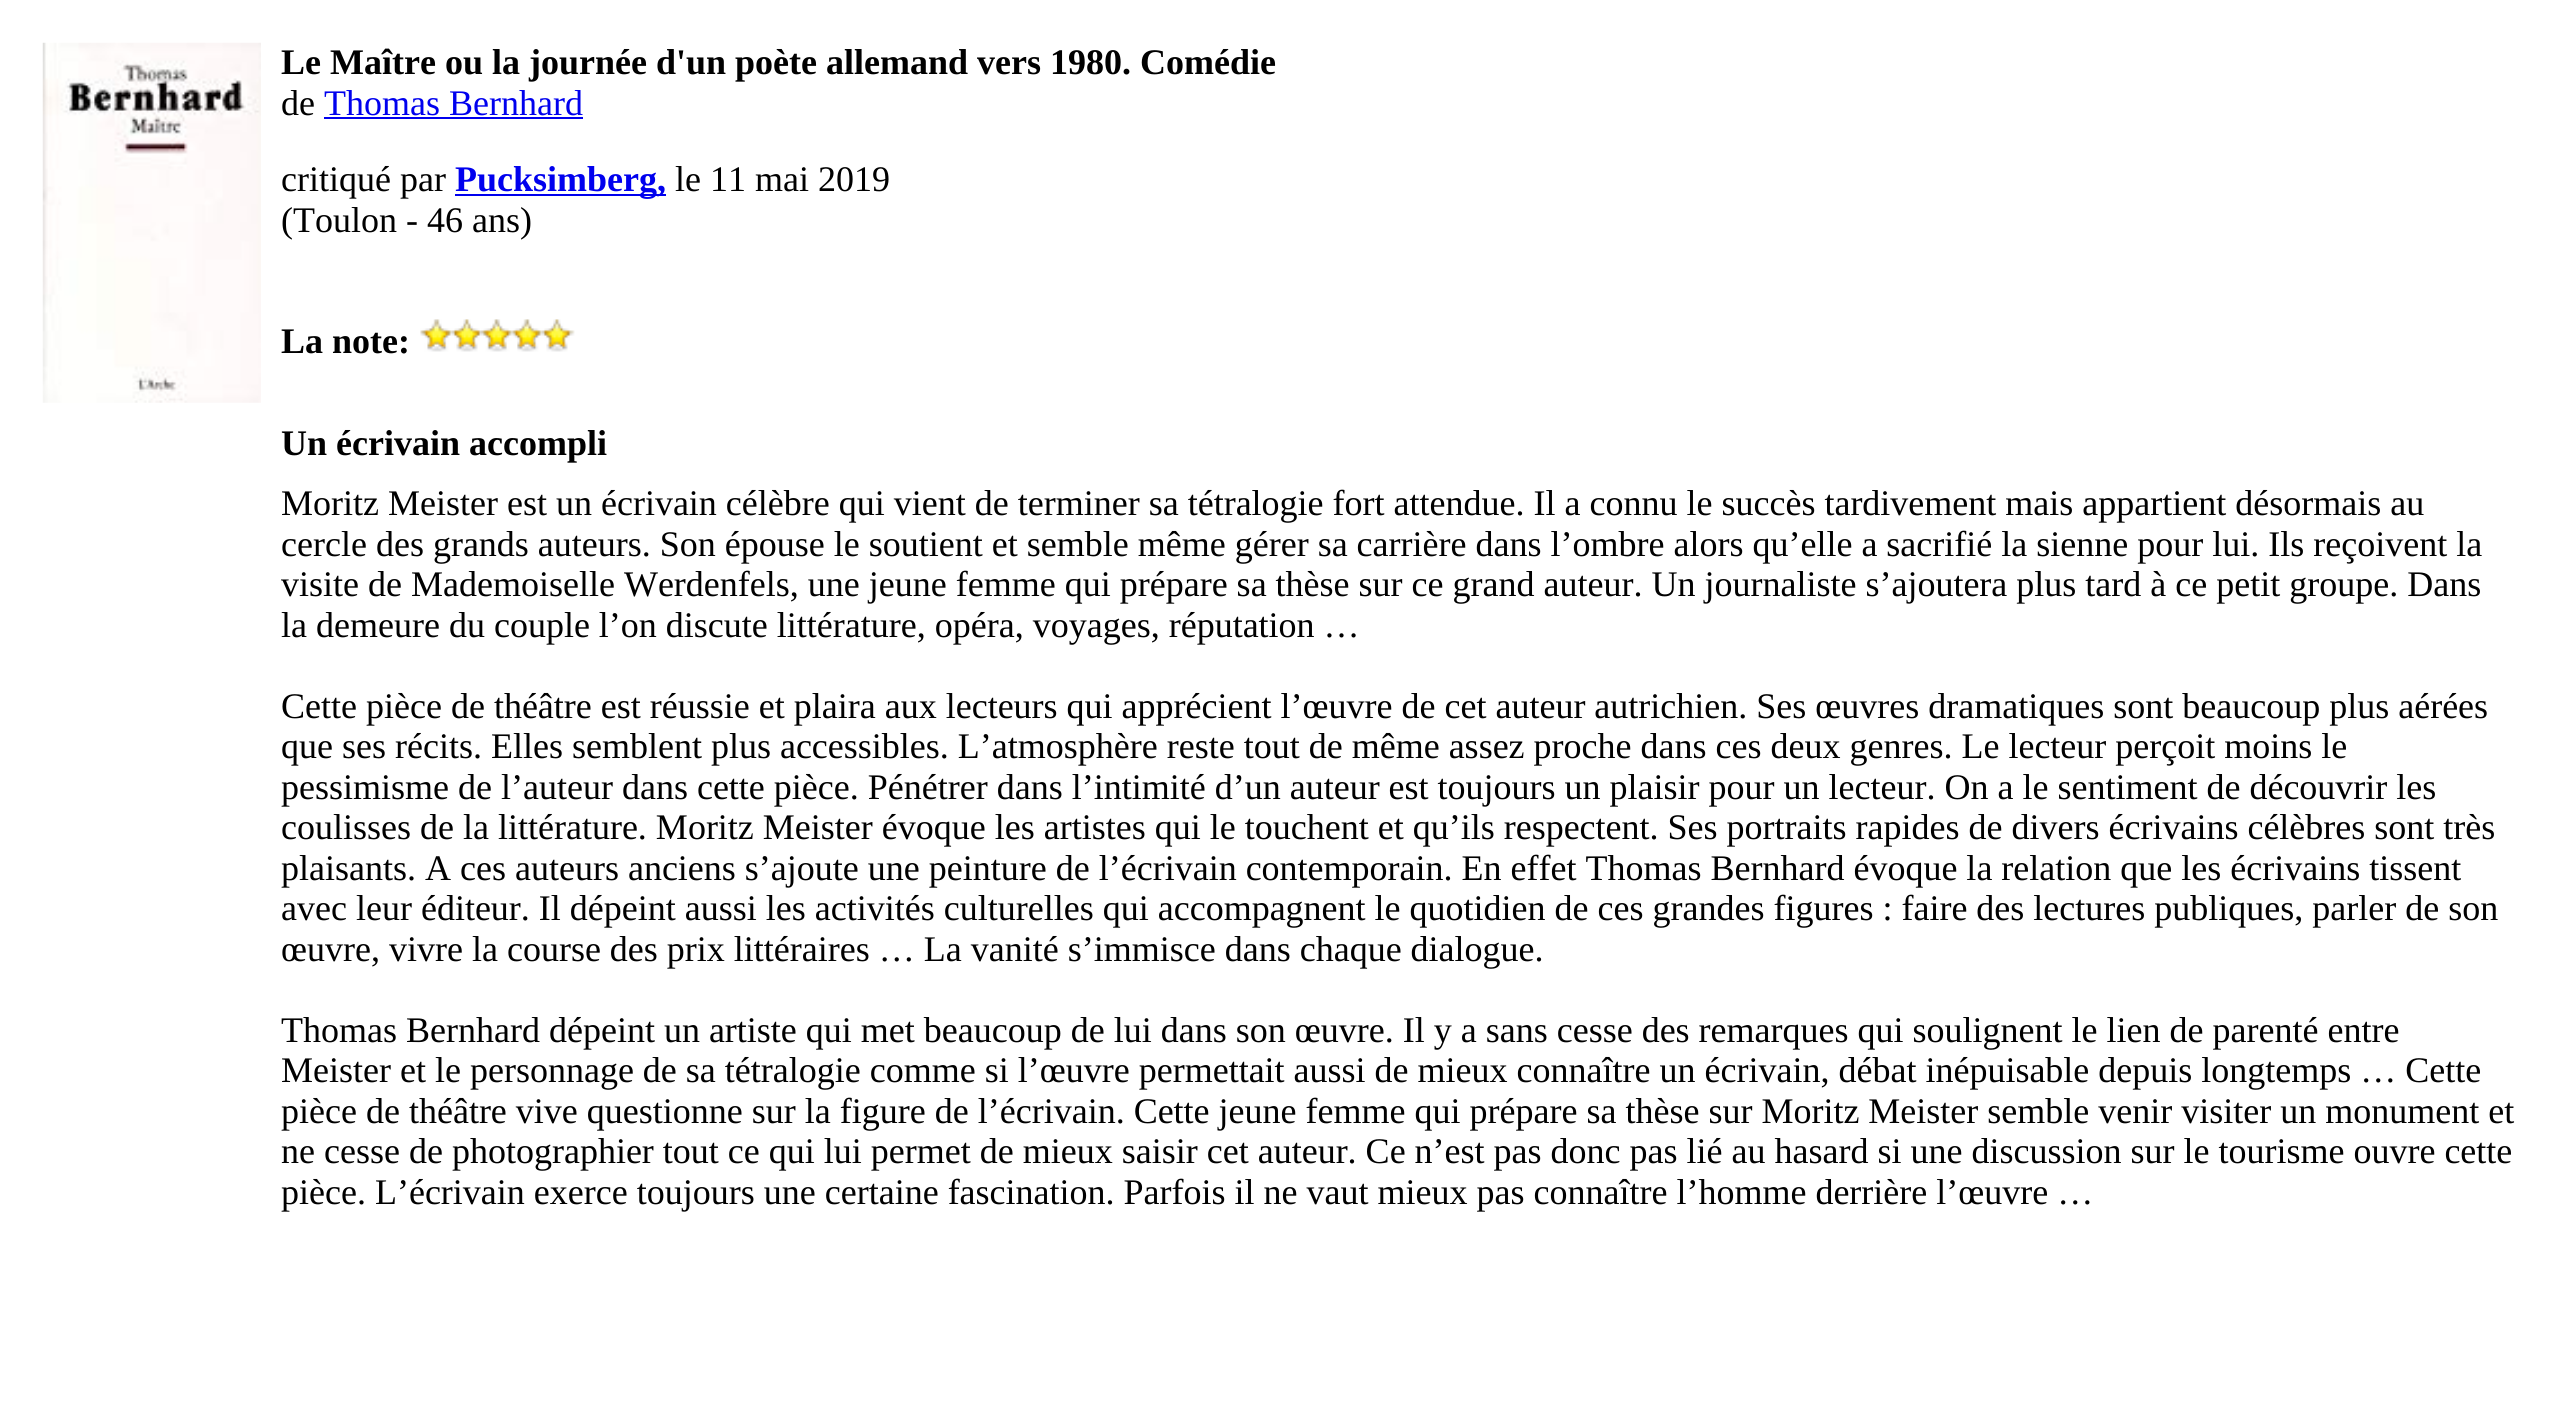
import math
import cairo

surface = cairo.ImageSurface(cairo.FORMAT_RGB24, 2558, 1424)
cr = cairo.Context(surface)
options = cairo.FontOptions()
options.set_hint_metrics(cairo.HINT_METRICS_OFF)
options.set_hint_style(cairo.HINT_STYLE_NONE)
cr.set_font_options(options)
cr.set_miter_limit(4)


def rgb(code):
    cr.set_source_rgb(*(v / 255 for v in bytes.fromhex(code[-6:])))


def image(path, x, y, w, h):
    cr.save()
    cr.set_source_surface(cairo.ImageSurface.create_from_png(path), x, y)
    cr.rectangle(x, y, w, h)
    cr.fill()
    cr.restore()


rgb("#ffffff")
cr.paint()
image("img/1.png", 42, 42, 219, 361)
rgb("#0000ee")
cr.rectangle(324, 117, 259, 2)
cr.fill()
cr.rectangle(455, 194, 211, 2)
cr.fill()
image("img/2.png", 420, 319, 155, 33)
cr.select_font_face("Liberation Serif", cairo.FONT_SLANT_NORMAL, cairo.FONT_WEIGHT_BOLD)
cr.set_font_size(36)
rgb("#000000")
cr.move_to(281, 74)
cr.show_text("Le Maître ou la journée d'un poète allemand vers 1980. Comédie")
cr.select_font_face("Liberation Serif")
cr.move_to(281, 115)
cr.show_text("de")
rgb("#0000ee")
cr.move_to(324, 115)
cr.show_text("Thomas Bernhard")
rgb("#000000")
cr.move_to(281, 191)
cr.show_text("critiqué par")
cr.select_font_face("Liberation Serif", cairo.FONT_SLANT_NORMAL, cairo.FONT_WEIGHT_BOLD)
rgb("#0000ee")
cr.move_to(455, 191)
cr.show_text("Pucksimberg,")
cr.select_font_face("Liberation Serif")
rgb("#000000")
cr.move_to(675, 191)
cr.show_text("le 11 mai 2019")
cr.move_to(281, 232)
cr.show_text("(Toulon - 46 ans)")
cr.select_font_face("Liberation Serif", cairo.FONT_SLANT_NORMAL, cairo.FONT_WEIGHT_BOLD)
cr.move_to(281, 353)
cr.show_text("La note:")
cr.move_to(281, 455)
cr.show_text("Un écrivain accompli")
cr.select_font_face("Liberation Serif")
for x, y, s in [
    (281, 515, "Moritz Meister est un écrivain célèbre qui vient de terminer sa tétralogie fort attendue. Il a connu le succès tardivement mais appartient désormais au"),
    (281, 556, "cercle des grands auteurs. Son épouse le soutient et semble même gérer sa carrière dans l’ombre alors qu’elle a sacrifié la sienne pour lui. Ils reçoivent la"),
    (281, 596, "visite de Mademoiselle Werdenfels, une jeune femme qui prépare sa thèse sur ce grand auteur. Un journaliste s’ajoutera plus tard à ce petit groupe. Dans"),
    (281, 637, "la demeure du couple l’on discute littérature, opéra, voyages, réputation …"),
    (281, 718, "Cette pièce de théâtre est réussie et plaira aux lecteurs qui apprécient l’œuvre de cet auteur autrichien. Ses œuvres dramatiques sont beaucoup plus aérées"),
    (281, 758, "que ses récits. Elles semblent plus accessibles. L’atmosphère reste tout de même assez proche dans ces deux genres. Le lecteur perçoit moins le"),
    (281, 799, "pessimisme de l’auteur dans cette pièce. Pénétrer dans l’intimité d’un auteur est toujours un plaisir pour un lecteur. On a le sentiment de découvrir les"),
    (281, 839, "coulisses de la littérature. Moritz Meister évoque les artistes qui le touchent et qu’ils respectent. Ses portraits rapides de divers écrivains célèbres sont très"),
    (281, 880, "plaisants. A ces auteurs anciens s’ajoute une peinture de l’écrivain contemporain. En effet Thomas Bernhard évoque la relation que les écrivains tissent"),
    (281, 920, "avec leur éditeur. Il dépeint aussi les activités culturelles qui accompagnent le quotidien de ces grandes figures : faire des lectures publiques, parler de son"),
    (281, 961, "œuvre, vivre la course des prix littéraires … La vanité s’immisce dans chaque dialogue."),
    (281, 1042, "Thomas Bernhard dépeint un artiste qui met beaucoup de lui dans son œuvre. Il y a sans cesse des remarques qui soulignent le lien de parenté entre"),
    (281, 1082, "Meister et le personnage de sa tétralogie comme si l’œuvre permettait aussi de mieux connaître un écrivain, débat inépuisable depuis longtemps … Cette"),
    (281, 1123, "pièce de théâtre vive questionne sur la figure de l’écrivain. Cette jeune femme qui prépare sa thèse sur Moritz Meister semble venir visiter un monument et"),
    (281, 1163, "ne cesse de photographier tout ce qui lui permet de mieux saisir cet auteur. Ce n’est pas donc pas lié au hasard si une discussion sur le tourisme ouvre cette"),
    (281, 1204, "pièce. L’écrivain exerce toujours une certaine fascination. Parfois il ne vaut mieux pas connaître l’homme derrière l’œuvre …"),
]:
    cr.move_to(x, y)
    cr.show_text(s)
surface.write_to_png("page.png")
